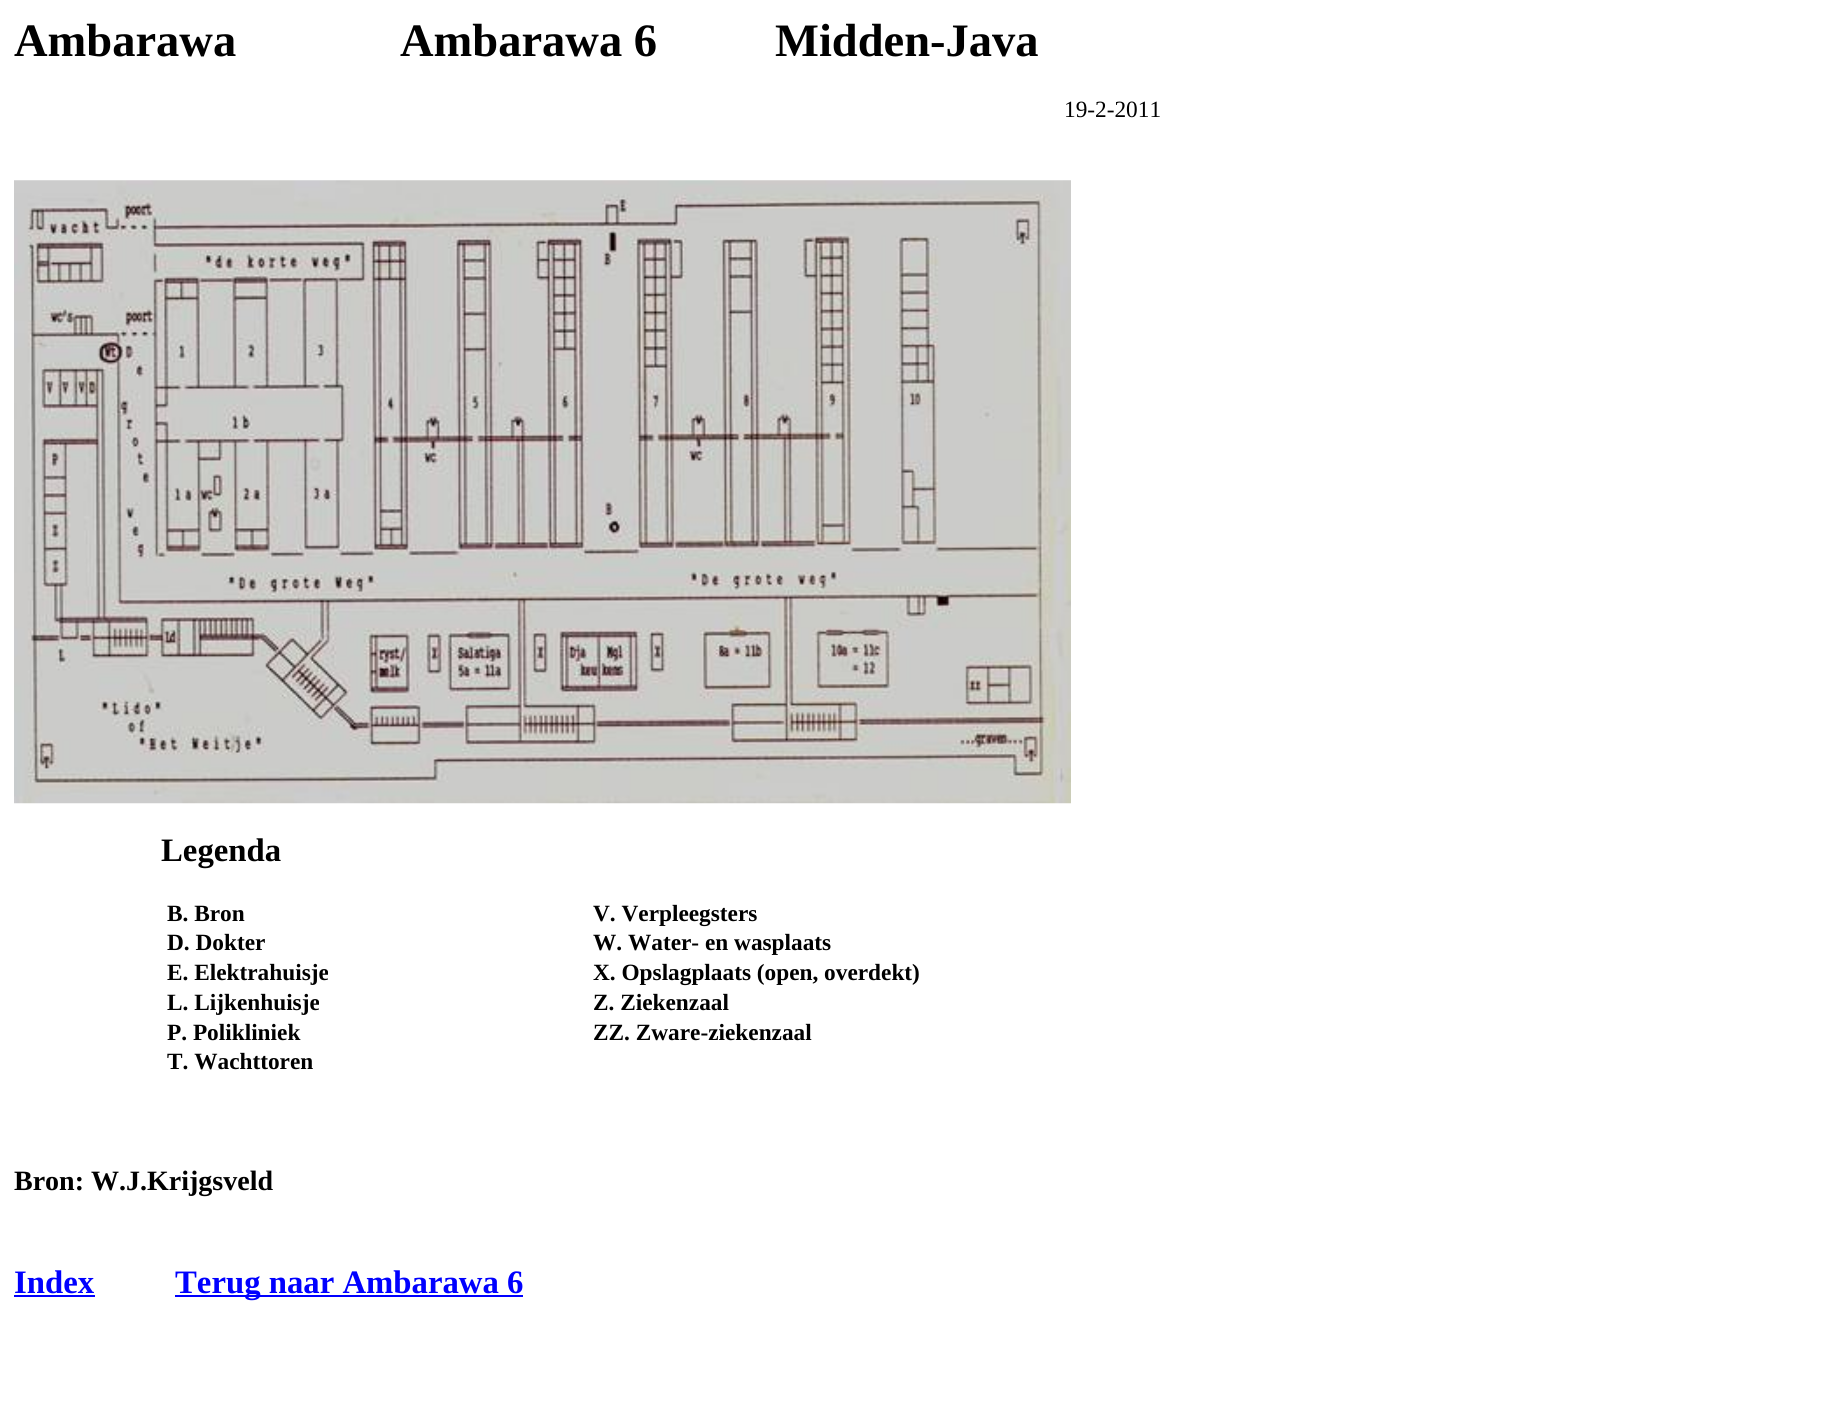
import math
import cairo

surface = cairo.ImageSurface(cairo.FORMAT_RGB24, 1821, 1405)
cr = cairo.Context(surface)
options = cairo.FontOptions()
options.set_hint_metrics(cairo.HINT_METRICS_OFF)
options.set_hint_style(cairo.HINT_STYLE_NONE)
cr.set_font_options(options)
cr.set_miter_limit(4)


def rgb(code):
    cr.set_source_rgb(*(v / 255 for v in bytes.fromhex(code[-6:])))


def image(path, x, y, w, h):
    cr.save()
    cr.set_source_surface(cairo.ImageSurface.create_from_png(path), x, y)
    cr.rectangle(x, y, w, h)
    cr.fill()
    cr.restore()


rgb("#ffffff")
cr.paint()
image("img/1.png", 14, 180, 1057, 624)
rgb("#0000ff")
cr.rectangle(14, 1295, 81, 2)
cr.fill()
cr.rectangle(175, 1295, 348, 2)
cr.fill()
cr.select_font_face("Liberation Serif", cairo.FONT_SLANT_NORMAL, cairo.FONT_WEIGHT_BOLD)
cr.set_font_size(46.5)
rgb("#000000")
for x, y, s in [
    (14, 56, "Ambarawa"),
    (400, 56, "Ambarawa 6"),
    (775, 56, "Midden-Java"),
]:
    cr.move_to(x, y)
    cr.show_text(s)
cr.select_font_face("Liberation Serif")
cr.set_font_size(23.3)
cr.move_to(1064, 117)
cr.show_text("19-2-2011")
cr.select_font_face("Liberation Serif", cairo.FONT_SLANT_NORMAL, cairo.FONT_WEIGHT_BOLD)
cr.set_font_size(32.75)
cr.move_to(161, 861)
cr.show_text("Legenda")
cr.set_font_size(23.3)
for x, y, s in [
    (167, 921, "B. Bron"),
    (593, 921, "V. Verpleegsters"),
    (167, 950, "D. Dokter"),
    (593, 950, "W. Water- en wasplaats"),
    (167, 980, "E. Elektrahuisje"),
    (593, 980, "X. Opslagplaats (open, overdekt)"),
    (167, 1010, "L. Lijkenhuisje"),
    (593, 1010, "Z. Ziekenzaal"),
    (167, 1040, "P. Polikliniek"),
    (593, 1040, "ZZ. Zware-ziekenzaal"),
    (167, 1069, "T. Wachttoren"),
]:
    cr.move_to(x, y)
    cr.show_text(s)
cr.set_font_size(28)
cr.move_to(14, 1190)
cr.show_text("Bron: W.J.Krijgsveld")
cr.set_font_size(32.75)
rgb("#0000ff")
cr.move_to(14, 1293)
cr.show_text("Index")
cr.move_to(175, 1293)
cr.show_text("Terug naar Ambarawa 6")
surface.write_to_png("page.png")
